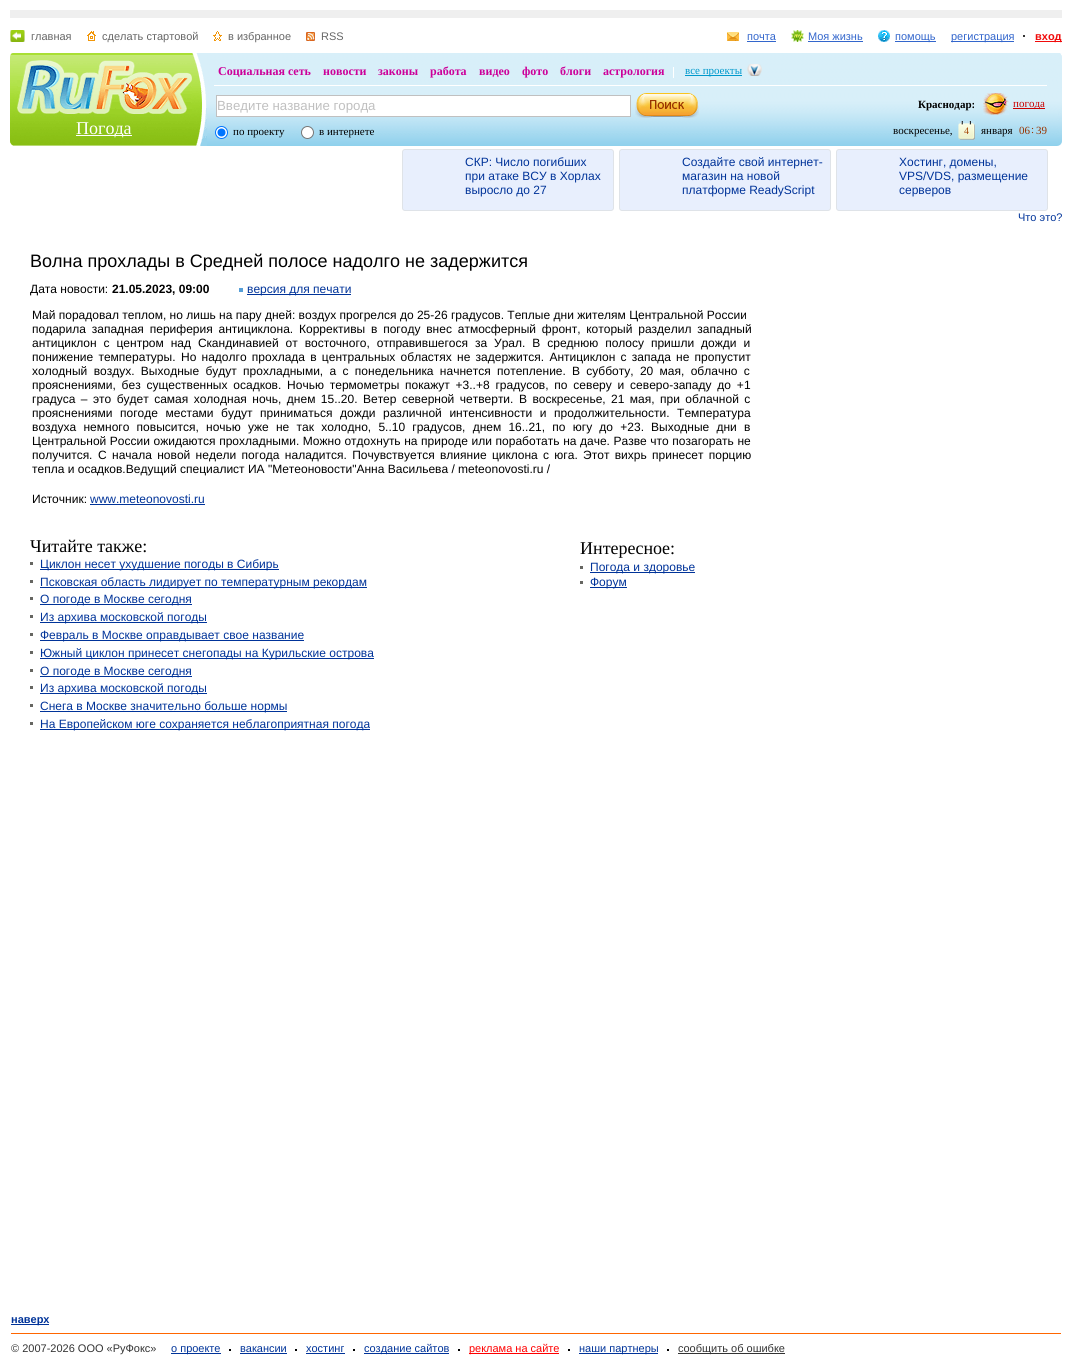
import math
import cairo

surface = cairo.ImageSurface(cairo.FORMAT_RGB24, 1072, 1358)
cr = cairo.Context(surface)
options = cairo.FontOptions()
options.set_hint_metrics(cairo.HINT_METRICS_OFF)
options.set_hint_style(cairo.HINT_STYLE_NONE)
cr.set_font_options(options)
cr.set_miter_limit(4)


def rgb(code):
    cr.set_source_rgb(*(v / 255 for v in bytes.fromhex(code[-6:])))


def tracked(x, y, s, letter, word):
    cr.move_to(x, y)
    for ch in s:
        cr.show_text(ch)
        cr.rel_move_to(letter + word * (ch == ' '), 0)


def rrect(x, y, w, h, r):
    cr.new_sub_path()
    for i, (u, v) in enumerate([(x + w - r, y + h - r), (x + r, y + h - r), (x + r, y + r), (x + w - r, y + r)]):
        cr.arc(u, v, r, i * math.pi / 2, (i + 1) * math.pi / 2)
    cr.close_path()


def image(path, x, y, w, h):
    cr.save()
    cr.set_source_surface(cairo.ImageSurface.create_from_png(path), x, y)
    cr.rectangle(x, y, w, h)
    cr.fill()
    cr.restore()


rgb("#ffffff")
cr.paint()
rgb("#efefef")
cr.rectangle(10, 10, 1052, 8)
cr.fill()
image("img/1.png", 10, 30, 15, 12)
image("img/2.png", 87, 31, 9, 10)
image("img/3.png", 213, 31, 9, 10)
image("img/4.png", 306, 32, 9, 9)
image("img/5.png", 727, 32, 12, 9)
rgb("#3366cc")
cr.rectangle(747, 41, 29, 1)
cr.fill()
image("img/6.png", 791, 30, 13, 12)
cr.rectangle(808, 41, 55, 1)
cr.fill()
image("img/7.png", 878, 30, 12, 12)
for x, y, w, h, color in [
    (895, 41, 41, 1, "#3366cc"),
    (951, 41, 63, 1, "#3366cc"),
    (1023, 35, 2, 2, "#333333"),
    (1035, 41, 27, 1, "#f00b0b"),
]:
    rgb(color)
    cr.rectangle(x, y, w, h)
    cr.fill()
image("img/8.png", 207, 53, 850, 93)
image("img/9.png", 10, 53, 197, 93)
image("img/10.png", 17, 60, 175, 54)
for x, y, w, h, color in [
    (76, 135, 56, 1, "#ffffff"),
    (214, 85, 833, 1, "#ffffff"),
    (673, 67, 1, 11, "#ffffff"),
    (685, 75, 57, 1, "#0099cc"),
]:
    rgb(color)
    cr.rectangle(x, y, w, h)
    cr.fill()
image("img/11.png", 747, 64, 15, 12)
rgb("#ffffff")
cr.rectangle(216.5, 95.5, 414, 21)
cr.fill_preserve()
rgb("#c0c0c0")
cr.set_line_width(1)
cr.stroke()
image("img/12.png", 635, 93, 64, 25)
rgb("#ffffff")
cr.arc(221.5, 132.5, 6, 0, 2 * math.pi)
cr.fill_preserve()
rgb("#0075ff")
cr.stroke()
cr.arc(221.5, 132.5, 4, 0, 2 * math.pi)
cr.fill()
rgb("#ffffff")
cr.arc(307.5, 132.5, 6, 0, 2 * math.pi)
cr.fill_preserve()
rgb("#767676")
cr.stroke()
image("img/13.png", 983, 93, 26, 22)
rgb("#cc0000")
cr.rectangle(1013, 108, 32, 1)
cr.fill()
image("img/14.png", 958, 121, 17, 19)
image("img/15.png", 1057, 53, 5, 93)
rgb("#e8effd")
rrect(402.5, 149.5, 211, 61, 2.5)
cr.fill_preserve()
rgb("#dfe3e8")
cr.stroke()
rgb("#e8effd")
rrect(619.5, 149.5, 211, 61, 2.5)
cr.fill_preserve()
rgb("#dfe3e8")
cr.stroke()
rgb("#e8effd")
rrect(836.5, 149.5, 211, 61, 2.5)
cr.fill_preserve()
rgb("#dfe3e8")
cr.stroke()
for x, y, w, h, color in [
    (239, 288, 4, 4, "#569fd8"),
    (247, 294, 104, 1, "#003399"),
    (90, 504, 115, 1, "#003399"),
    (30, 562, 3, 3, "#666661"),
    (40, 569, 239, 1, "#003399"),
    (30, 580, 3, 3, "#666661"),
    (40, 587, 327, 1, "#003399"),
    (30, 597, 3, 3, "#666661"),
    (40, 604, 152, 1, "#003399"),
    (30, 615, 3, 3, "#666661"),
    (40, 622, 167, 1, "#003399"),
    (30, 633, 3, 3, "#666661"),
    (40, 640, 264, 1, "#003399"),
    (30, 651, 3, 3, "#666661"),
    (40, 658, 334, 1, "#003399"),
    (30, 669, 3, 3, "#666661"),
    (40, 676, 152, 1, "#003399"),
    (30, 686, 3, 3, "#666661"),
    (40, 693, 167, 1, "#003399"),
    (30, 704, 3, 3, "#666661"),
    (40, 711, 247, 1, "#003399"),
    (30, 722, 3, 3, "#666661"),
    (40, 729, 330, 1, "#003399"),
    (580, 566, 3, 3, "#666661"),
    (590, 572, 105, 1, "#003399"),
    (580, 581, 3, 3, "#666661"),
    (590, 587, 37, 1, "#003399"),
    (11, 1324, 38, 1, "#003399"),
    (11, 1333, 1050, 1, "#ff6600"),
    (171, 1353, 50, 1, "#003399"),
    (229, 1349, 2, 2, "#010101"),
    (240, 1353, 47, 1, "#003399"),
    (295, 1349, 2, 2, "#010101"),
    (306, 1353, 39, 1, "#003399"),
    (353, 1349, 2, 2, "#010101"),
    (364, 1353, 85, 1, "#003399"),
    (458, 1349, 2, 2, "#010101"),
    (469, 1353, 90, 1, "#ff0000"),
    (568, 1349, 2, 2, "#010101"),
    (579, 1353, 79, 1, "#003399"),
    (667, 1349, 2, 2, "#010101"),
    (678, 1353, 107, 1, "#333333"),
]:
    rgb(color)
    cr.rectangle(x, y, w, h)
    cr.fill()
cr.select_font_face("Liberation Sans")
cr.set_font_size(11)
rgb("#666666")
for x, y, s in [
    (31, 40, "главная"),
    (102, 40, "сделать стартовой"),
    (228, 40, "в избранное"),
    (321, 40, "RSS"),
]:
    cr.move_to(x, y)
    cr.show_text(s)
rgb("#3366cc")
for x, y, s in [
    (747, 40, "почта"),
    (808, 40, "Моя жизнь"),
    (895, 40, "помощь"),
    (951, 40, "регистрация"),
]:
    cr.move_to(x, y)
    cr.show_text(s)
cr.select_font_face("Liberation Sans", cairo.FONT_SLANT_NORMAL, cairo.FONT_WEIGHT_BOLD)
rgb("#f00b0b")
cr.move_to(1035, 40)
cr.show_text("вход")
cr.select_font_face("Liberation Serif")
cr.set_font_size(18)
rgb("#ffffff")
cr.move_to(76, 134)
cr.show_text("Погода")
cr.select_font_face("Liberation Serif", cairo.FONT_SLANT_NORMAL, cairo.FONT_WEIGHT_BOLD)
cr.set_font_size(12)
rgb("#cc0099")
for x, y, s in [
    (218, 75, "Социальная сеть"),
    (323, 75, "новости"),
    (378, 75, "законы"),
    (430, 75, "работа"),
    (479, 75, "видео"),
    (522, 75, "фото"),
    (560, 75, "блоги"),
    (603, 75, "астрология"),
]:
    cr.move_to(x, y)
    cr.show_text(s)
cr.select_font_face("Liberation Serif")
cr.set_font_size(11)
rgb("#0099cc")
cr.move_to(685, 74)
cr.show_text("все проекты")
cr.select_font_face("Liberation Sans")
cr.set_font_size(13.25)
rgb("#c0c0c0")
cr.move_to(217, 110)
cr.show_text("Введите название города")
cr.select_font_face("Liberation Serif")
cr.set_font_size(11)
rgb("#000000")
cr.move_to(233, 135)
cr.show_text("по проекту")
cr.move_to(319, 135)
cr.show_text("в интернете")
cr.select_font_face("Liberation Serif", cairo.FONT_SLANT_NORMAL, cairo.FONT_WEIGHT_BOLD)
cr.move_to(918, 108)
cr.show_text("Краснодар:")
cr.select_font_face("Liberation Serif")
rgb("#cc0000")
cr.move_to(1013, 107)
cr.show_text("погода")
rgb("#000000")
cr.move_to(893, 134)
cr.show_text("воскресенье,")
cr.set_font_size(10)
rgb("#a64607")
cr.move_to(964, 134)
cr.show_text("4")
cr.set_font_size(11)
rgb("#000000")
cr.move_to(981, 134)
cr.show_text("января")
rgb("#993300")
for x, y, s in [
    (1019, 134, "06"),
    (1031, 133, ":"),
    (1036, 134, "39"),
]:
    cr.move_to(x, y)
    cr.show_text(s)
cr.select_font_face("Liberation Sans")
cr.set_font_size(12)
rgb("#003399")
for x, y, s in [
    (465, 166, "СКР: Число погибших"),
    (465, 180, "при атаке ВСУ в Хорлах"),
    (465, 194, "выросло до 27"),
    (682, 166, "Создайте свой интернет-"),
    (682, 180, "магазин на новой"),
    (682, 194, "платформе ReadyScript"),
    (899, 166, "Хостинг, домены,"),
    (899, 180, "VPS/VDS, размещение"),
    (899, 194, "серверов"),
]:
    cr.move_to(x, y)
    cr.show_text(s)
cr.set_font_size(11)
cr.move_to(1018, 221)
cr.show_text("Что это?")
cr.set_font_size(18)
rgb("#000000")
cr.move_to(30, 267)
cr.show_text("Волна прохлады в Средней полосе надолго не задержится")
cr.set_font_size(12)
cr.move_to(30, 293)
cr.show_text("Дата новости:")
cr.select_font_face("Liberation Sans", cairo.FONT_SLANT_NORMAL, cairo.FONT_WEIGHT_BOLD)
cr.move_to(112, 293)
cr.show_text("21.05.2023, 09:00")
cr.select_font_face("Liberation Sans")
rgb("#003399")
cr.move_to(247, 293)
cr.show_text("версия для печати")
rgb("#000000")
cr.move_to(32, 319)
cr.show_text("Май порадовал теплом, но лишь на пару дней: воздух прогрелся до 25-26 градусов. Теплые дни жителям Центральной России")
tracked(32, 333, "подарила западная периферия антициклона.", 0, 2.5)
tracked(299, 333, "Коррективы в погоду внес атмосферный фронт, который разделил западный", 0, 2.5)
tracked(32, 347, "антициклон с центром над Скандинавией от восточного, отправившегося за Урал. В среднюю полосу пришли дожди и", 0, 3.6)
tracked(32, 361, "понижение температуры.", 0, 1.9)
tracked(181, 361, "Но надолго прохлада в центральных областях не задержится. Антициклон с запада не пропустит", 0, 1.9)
tracked(32, 375, "холодный воздух. Выходные будут прохладными, а с понедельника начнется потепление.", 0, 3)
tracked(572, 375, "В субботу, 20 мая, облачно с", 0, 3)
tracked(32, 389, "прояснениями, без существенных осадков. Ночью термометры покажут +3..+8 градусов, по северу и северо-западу до +1", 0, 2.5)
tracked(32, 403, "градуса – это будет самая холодная ночь, днем 15..20. Ветер северной четверти.", 0, 2.1)
tracked(519, 403, "В воскресенье, 21 мая, при облачной с", 0, 2.1)
tracked(32, 417, "прояснениями погоде местами будут приниматься дожди различной интенсивности и продолжительности. Температура", 0, 4.25)
tracked(32, 431, "воздуха немного повысится, ночью уже не так холодно, 5..10 градусов, днем 16..21, по югу до +23.", 0, 3.9)
tracked(651, 431, "Выходные дни в", 0, 3.9)
tracked(32, 445, "Центральной России ожидаются прохладными. Можно отдохнуть на природе или поработать на даче. Разве что позагорать не", 0, 0.25)
cr.move_to(32, 459)
cr.show_text("получится.")
tracked(98, 459, "С начала новой недели погода наладится. Почувствуется влияние циклона с юга. Этот вихрь принесет порцию", 0, 2)
cr.move_to(32, 473)
cr.show_text("тепла и осадков.Ведущий специалист ИА \"Метеоновости\"Анна Васильева / meteonovosti.ru /")
cr.move_to(32, 503)
cr.show_text("Источник:")
rgb("#003399")
cr.move_to(90, 503)
cr.show_text("www.meteonovosti.ru")
cr.select_font_face("Liberation Serif")
cr.set_font_size(18)
rgb("#000000")
cr.move_to(30, 552)
cr.show_text("Читайте также:")
cr.select_font_face("Liberation Sans")
cr.set_font_size(12)
rgb("#003399")
for x, y, s in [
    (40, 568, "Циклон несет ухудшение погоды в Сибирь"),
    (40, 586, "Псковская область лидирует по температурным рекордам"),
    (40, 603, "О погоде в Москве сегодня"),
    (40, 621, "Из архива московской погоды"),
    (40, 639, "Февраль в Москве оправдывает свое название"),
    (40, 657, "Южный циклон принесет снегопады на Курильские острова"),
    (40, 675, "О погоде в Москве сегодня"),
    (40, 692, "Из архива московской погоды"),
    (40, 710, "Снега в Москве значительно больше нормы"),
    (40, 728, "На Европейском юге сохраняется неблагоприятная погода"),
]:
    cr.move_to(x, y)
    cr.show_text(s)
cr.select_font_face("Liberation Serif")
cr.set_font_size(18)
rgb("#000000")
cr.move_to(580, 554)
cr.show_text("Интересное:")
cr.select_font_face("Liberation Sans")
cr.set_font_size(12)
rgb("#003399")
cr.move_to(590, 571)
cr.show_text("Погода и здоровье")
cr.move_to(590, 586)
cr.show_text("Форум")
cr.select_font_face("Liberation Sans", cairo.FONT_SLANT_NORMAL, cairo.FONT_WEIGHT_BOLD)
cr.set_font_size(11)
cr.move_to(11, 1323)
cr.show_text("наверх")
cr.select_font_face("Liberation Sans")
rgb("#333333")
cr.move_to(11, 1352)
cr.show_text("© 2007-2026 ООО «РуФокс»")
rgb("#003399")
for x, y, s in [
    (171, 1352, "о проекте"),
    (240, 1352, "вакансии"),
    (306, 1352, "хостинг"),
    (364, 1352, "создание сайтов"),
]:
    cr.move_to(x, y)
    cr.show_text(s)
rgb("#ff0000")
cr.move_to(469, 1352)
cr.show_text("реклама на сайте")
rgb("#003399")
cr.move_to(579, 1352)
cr.show_text("наши партнеры")
rgb("#333333")
cr.move_to(678, 1352)
cr.show_text("сообщить об ошибке")
surface.write_to_png("page.png")
